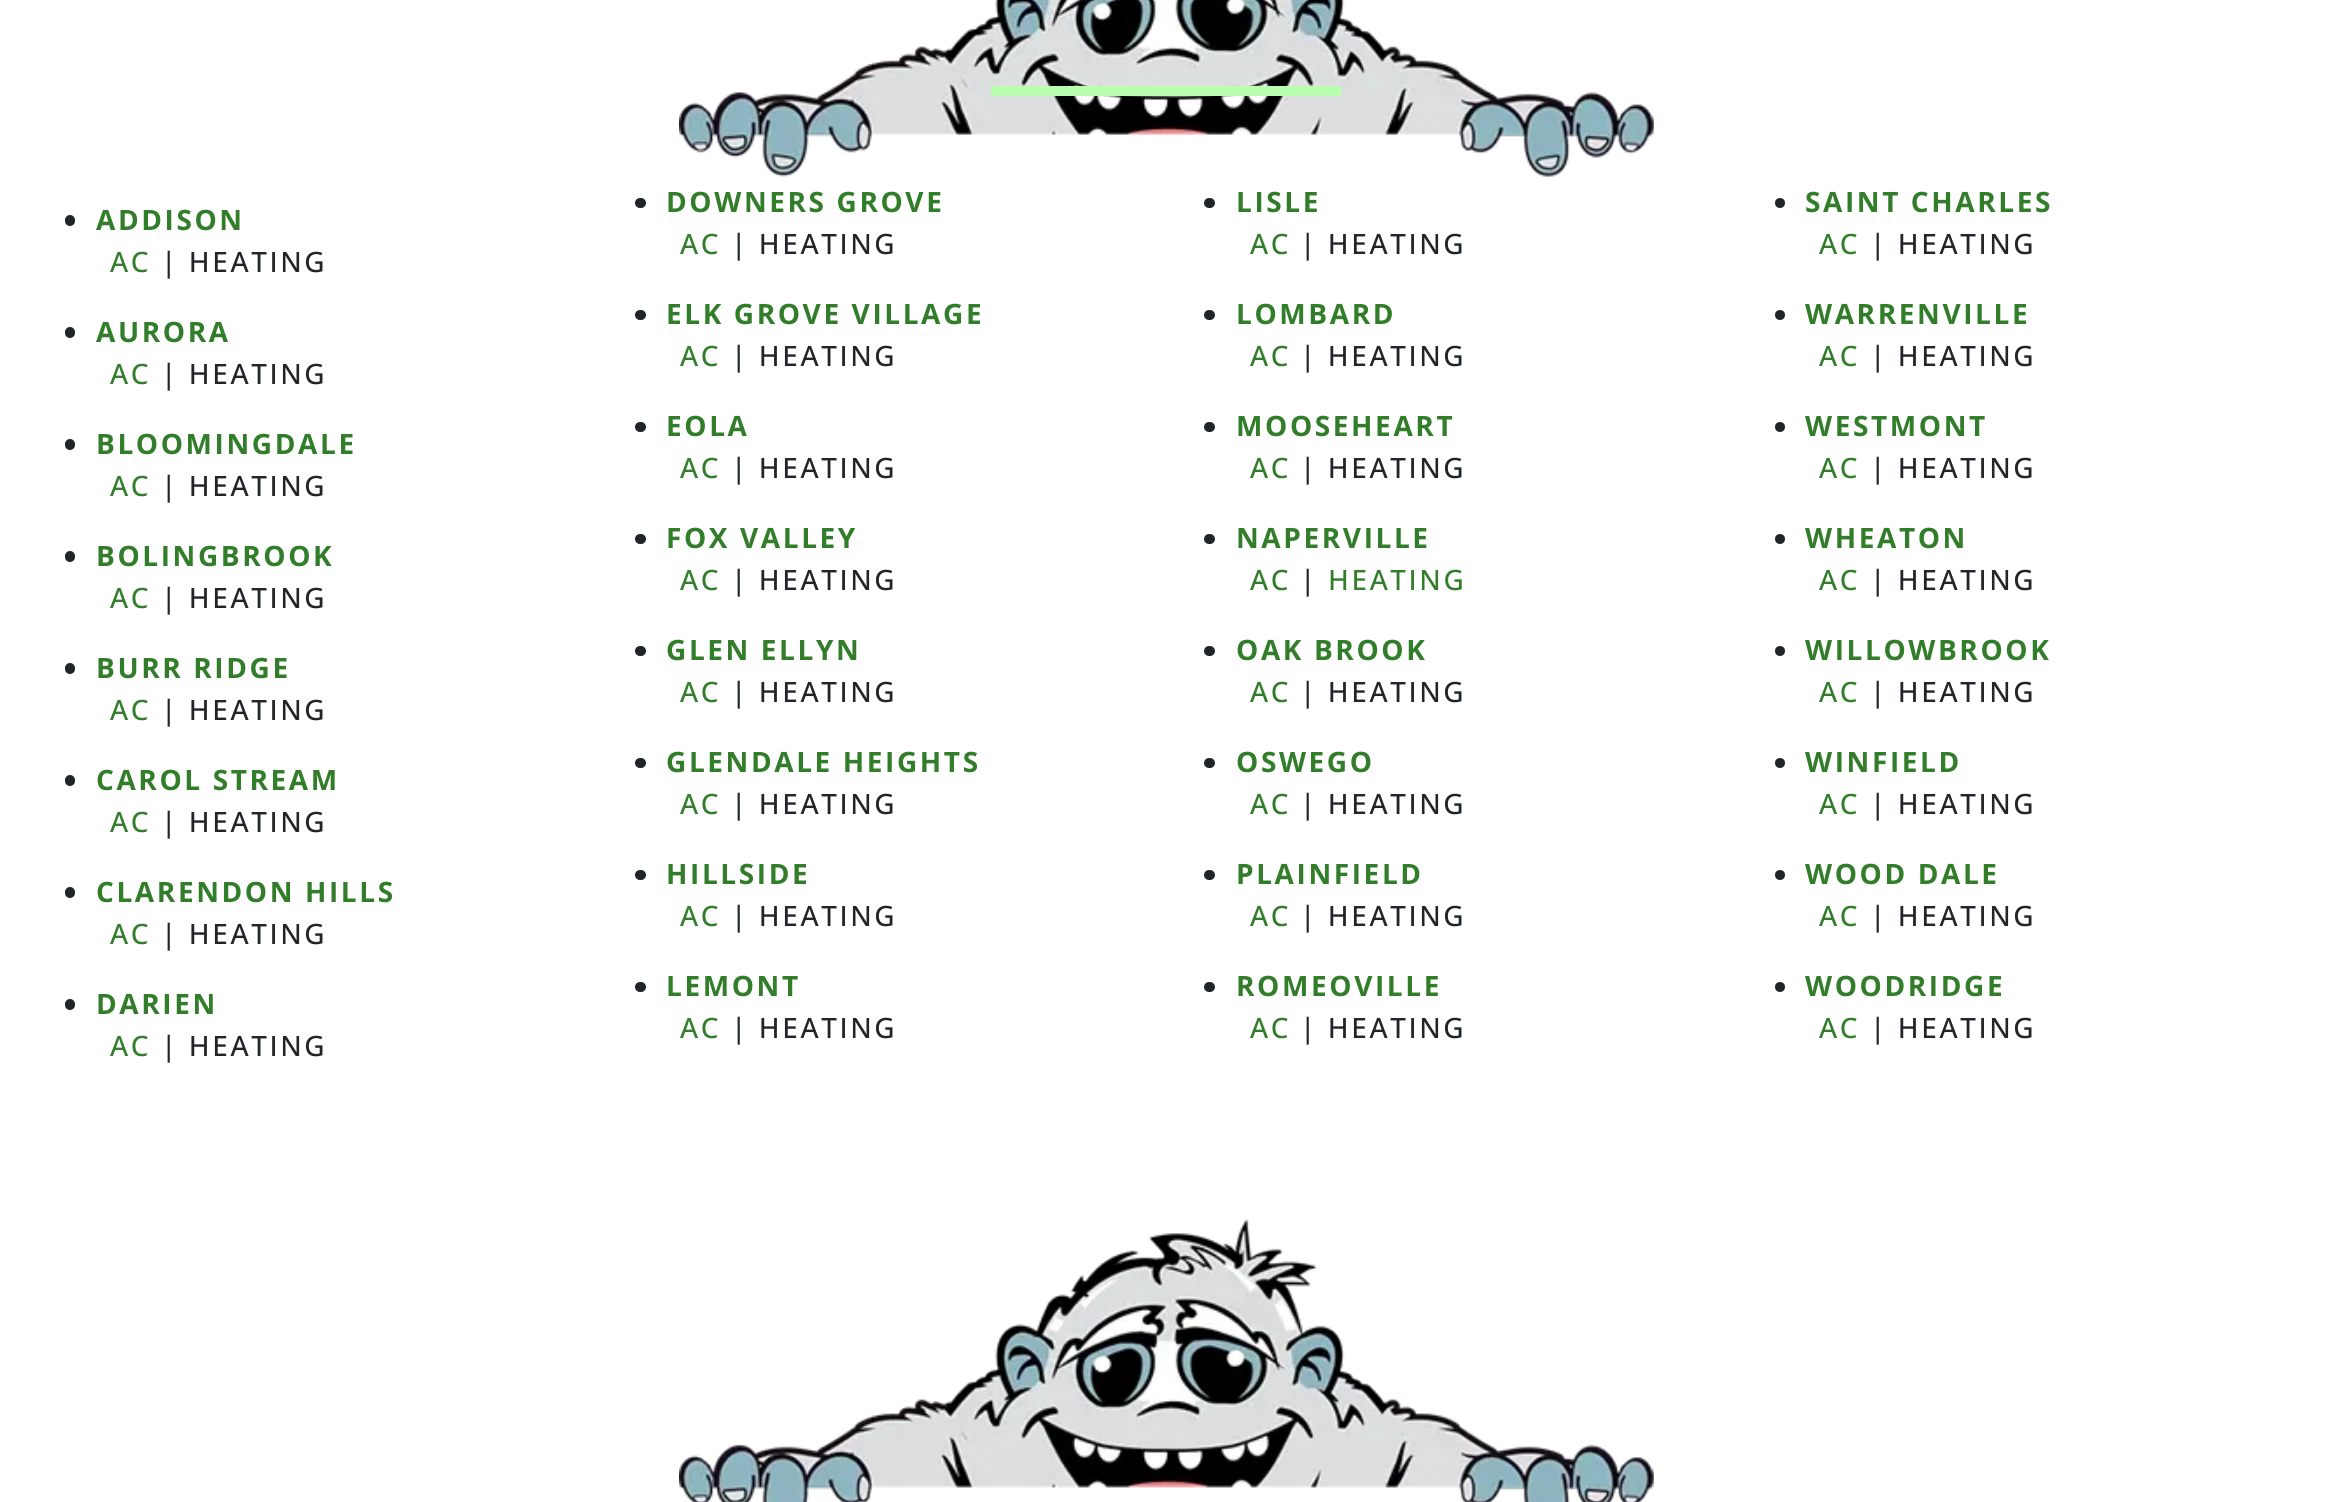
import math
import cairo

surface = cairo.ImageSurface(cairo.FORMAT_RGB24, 2330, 1502)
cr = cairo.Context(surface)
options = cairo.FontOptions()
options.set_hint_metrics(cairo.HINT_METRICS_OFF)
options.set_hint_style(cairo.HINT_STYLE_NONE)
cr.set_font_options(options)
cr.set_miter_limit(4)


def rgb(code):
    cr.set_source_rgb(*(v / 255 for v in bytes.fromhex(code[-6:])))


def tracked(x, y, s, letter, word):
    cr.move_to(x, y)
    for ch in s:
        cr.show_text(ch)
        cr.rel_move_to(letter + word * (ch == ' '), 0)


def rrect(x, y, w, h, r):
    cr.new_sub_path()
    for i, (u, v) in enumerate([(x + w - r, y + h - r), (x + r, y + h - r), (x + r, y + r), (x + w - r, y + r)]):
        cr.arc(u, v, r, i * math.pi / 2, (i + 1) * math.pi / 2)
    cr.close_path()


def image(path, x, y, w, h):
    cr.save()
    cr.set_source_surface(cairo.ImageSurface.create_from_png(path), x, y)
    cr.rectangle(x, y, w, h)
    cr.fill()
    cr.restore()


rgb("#ffffff")
cr.paint()
image("img/1.png", 679, 0, 975, 177)
rgb("#b8ffb0")
cr.rectangle(991, 86, 350, 10)
cr.fill()
rgb("#212529")
rrect(65, 215, 10, 11, 5)
cr.fill()
rrect(635, 198, 11, 10, 5)
cr.fill()
rrect(1204, 198, 11, 10, 5)
cr.fill()
cr.arc(1780, 203, 5, 0, 2 * math.pi)
cr.fill()
rrect(65, 327, 10, 11, 5)
cr.fill()
rrect(635, 310, 11, 10, 5)
cr.fill()
rrect(1204, 310, 11, 10, 5)
cr.fill()
cr.arc(1780, 315, 5, 0, 2 * math.pi)
cr.fill()
rrect(65, 439, 10, 11, 5)
cr.fill()
rrect(635, 422, 11, 10, 5)
cr.fill()
rrect(1204, 422, 11, 10, 5)
cr.fill()
cr.arc(1780, 427, 5, 0, 2 * math.pi)
cr.fill()
rrect(65, 551, 10, 11, 5)
cr.fill()
rrect(635, 534, 11, 10, 5)
cr.fill()
rrect(1204, 534, 11, 10, 5)
cr.fill()
cr.arc(1780, 539, 5, 0, 2 * math.pi)
cr.fill()
rrect(65, 663, 10, 11, 5)
cr.fill()
rrect(635, 646, 11, 10, 5)
cr.fill()
rrect(1204, 646, 11, 10, 5)
cr.fill()
cr.arc(1780, 651, 5, 0, 2 * math.pi)
cr.fill()
rrect(65, 775, 10, 11, 5)
cr.fill()
rrect(635, 758, 11, 10, 5)
cr.fill()
rrect(1204, 758, 11, 10, 5)
cr.fill()
cr.arc(1780, 763, 5, 0, 2 * math.pi)
cr.fill()
rrect(65, 887, 10, 11, 5)
cr.fill()
rrect(635, 870, 11, 10, 5)
cr.fill()
rrect(1204, 870, 11, 10, 5)
cr.fill()
cr.arc(1780, 875, 5, 0, 2 * math.pi)
cr.fill()
rrect(65, 999, 10, 11, 5)
cr.fill()
rrect(635, 982, 11, 10, 5)
cr.fill()
rrect(1204, 982, 11, 10, 5)
cr.fill()
cr.arc(1780, 987, 5, 0, 2 * math.pi)
cr.fill()
image("img/2.png", 679, 1219, 975, 283)
cr.select_font_face("Open Sans", cairo.FONT_SLANT_NORMAL, cairo.FONT_WEIGHT_BOLD)
cr.set_font_size(28)
rgb("#327d2a")
tracked(96, 230, "ADDISON", 2.6, 0)
cr.select_font_face("Open Sans Medium")
tracked(110, 272, "AC", 2.6, 0)
rgb("#212529")
tracked(161, 272, "| HEATING", 2.6, 0)
cr.select_font_face("Open Sans", cairo.FONT_SLANT_NORMAL, cairo.FONT_WEIGHT_BOLD)
rgb("#327d2a")
tracked(666, 212, "DOWNERS GROVE", 2.6, 0)
cr.select_font_face("Open Sans Medium")
tracked(680, 254, "AC", 2.6, 0)
rgb("#212529")
tracked(731, 254, "| HEATING", 2.6, 0)
cr.select_font_face("Open Sans", cairo.FONT_SLANT_NORMAL, cairo.FONT_WEIGHT_BOLD)
rgb("#327d2a")
tracked(1236, 212, "LISLE", 2.6, 0)
cr.select_font_face("Open Sans Medium")
tracked(1250, 254, "AC", 2.6, 0)
rgb("#212529")
tracked(1300, 254, "| HEATING", 2.6, 0)
cr.select_font_face("Open Sans", cairo.FONT_SLANT_NORMAL, cairo.FONT_WEIGHT_BOLD)
rgb("#327d2a")
tracked(1805, 212, "SAINT CHARLES", 2.6, 0)
cr.select_font_face("Open Sans Medium")
tracked(1819, 254, "AC", 2.6, 0)
rgb("#212529")
tracked(1870, 254, "| HEATING", 2.6, 0)
cr.select_font_face("Open Sans", cairo.FONT_SLANT_NORMAL, cairo.FONT_WEIGHT_BOLD)
rgb("#327d2a")
tracked(96, 342, "AURORA", 2.6, 0)
cr.select_font_face("Open Sans Medium")
tracked(110, 384, "AC", 2.6, 0)
rgb("#212529")
tracked(161, 384, "| HEATING", 2.6, 0)
cr.select_font_face("Open Sans", cairo.FONT_SLANT_NORMAL, cairo.FONT_WEIGHT_BOLD)
rgb("#327d2a")
tracked(666, 324, "ELK GROVE VILLAGE", 2.6, 0)
cr.select_font_face("Open Sans Medium")
tracked(680, 366, "AC", 2.6, 0)
rgb("#212529")
tracked(731, 366, "| HEATING", 2.6, 0)
cr.select_font_face("Open Sans", cairo.FONT_SLANT_NORMAL, cairo.FONT_WEIGHT_BOLD)
rgb("#327d2a")
tracked(1236, 324, "LOMBARD", 2.6, 0)
cr.select_font_face("Open Sans Medium")
tracked(1250, 366, "AC", 2.6, 0)
rgb("#212529")
tracked(1300, 366, "| HEATING", 2.6, 0)
cr.select_font_face("Open Sans", cairo.FONT_SLANT_NORMAL, cairo.FONT_WEIGHT_BOLD)
rgb("#327d2a")
tracked(1805, 324, "WARRENVILLE", 2.6, 0)
cr.select_font_face("Open Sans Medium")
tracked(1819, 366, "AC", 2.6, 0)
rgb("#212529")
tracked(1870, 366, "| HEATING", 2.6, 0)
cr.select_font_face("Open Sans", cairo.FONT_SLANT_NORMAL, cairo.FONT_WEIGHT_BOLD)
rgb("#327d2a")
tracked(96, 454, "BLOOMINGDALE", 2.6, 0)
cr.select_font_face("Open Sans Medium")
tracked(110, 496, "AC", 2.6, 0)
rgb("#212529")
tracked(161, 496, "| HEATING", 2.6, 0)
cr.select_font_face("Open Sans", cairo.FONT_SLANT_NORMAL, cairo.FONT_WEIGHT_BOLD)
rgb("#327d2a")
tracked(666, 436, "EOLA", 2.6, 0)
cr.select_font_face("Open Sans Medium")
tracked(680, 478, "AC", 2.6, 0)
rgb("#212529")
tracked(731, 478, "| HEATING", 2.6, 0)
cr.select_font_face("Open Sans", cairo.FONT_SLANT_NORMAL, cairo.FONT_WEIGHT_BOLD)
rgb("#327d2a")
tracked(1236, 436, "MOOSEHEART", 2.6, 0)
cr.select_font_face("Open Sans Medium")
tracked(1250, 478, "AC", 2.6, 0)
rgb("#212529")
tracked(1300, 478, "| HEATING", 2.6, 0)
cr.select_font_face("Open Sans", cairo.FONT_SLANT_NORMAL, cairo.FONT_WEIGHT_BOLD)
rgb("#327d2a")
tracked(1805, 436, "WESTMONT", 2.6, 0)
cr.select_font_face("Open Sans Medium")
tracked(1819, 478, "AC", 2.6, 0)
rgb("#212529")
tracked(1870, 478, "| HEATING", 2.6, 0)
cr.select_font_face("Open Sans", cairo.FONT_SLANT_NORMAL, cairo.FONT_WEIGHT_BOLD)
rgb("#327d2a")
tracked(96, 566, "BOLINGBROOK", 2.6, 0)
cr.select_font_face("Open Sans Medium")
tracked(110, 608, "AC", 2.6, 0)
rgb("#212529")
tracked(161, 608, "| HEATING", 2.6, 0)
cr.select_font_face("Open Sans", cairo.FONT_SLANT_NORMAL, cairo.FONT_WEIGHT_BOLD)
rgb("#327d2a")
tracked(666, 548, "FOX VALLEY", 2.6, 0)
cr.select_font_face("Open Sans Medium")
tracked(680, 590, "AC", 2.6, 0)
rgb("#212529")
tracked(731, 590, "| HEATING", 2.6, 0)
cr.select_font_face("Open Sans", cairo.FONT_SLANT_NORMAL, cairo.FONT_WEIGHT_BOLD)
rgb("#327d2a")
tracked(1236, 548, "NAPERVILLE", 2.6, 0)
cr.select_font_face("Open Sans Medium")
tracked(1250, 590, "AC", 2.6, 0)
rgb("#212529")
tracked(1300, 590, "|", 2.6, 0)
rgb("#327d2a")
tracked(1328, 590, "HEATING", 2.6, 0)
cr.select_font_face("Open Sans", cairo.FONT_SLANT_NORMAL, cairo.FONT_WEIGHT_BOLD)
tracked(1805, 548, "WHEATON", 2.6, 0)
cr.select_font_face("Open Sans Medium")
tracked(1819, 590, "AC", 2.6, 0)
rgb("#212529")
tracked(1870, 590, "| HEATING", 2.6, 0)
cr.select_font_face("Open Sans", cairo.FONT_SLANT_NORMAL, cairo.FONT_WEIGHT_BOLD)
rgb("#327d2a")
tracked(96, 678, "BURR RIDGE", 2.6, 0)
cr.select_font_face("Open Sans Medium")
tracked(110, 720, "AC", 2.6, 0)
rgb("#212529")
tracked(161, 720, "| HEATING", 2.6, 0)
cr.select_font_face("Open Sans", cairo.FONT_SLANT_NORMAL, cairo.FONT_WEIGHT_BOLD)
rgb("#327d2a")
tracked(666, 660, "GLEN ELLYN", 2.6, 0)
cr.select_font_face("Open Sans Medium")
tracked(680, 702, "AC", 2.6, 0)
rgb("#212529")
tracked(731, 702, "| HEATING", 2.6, 0)
cr.select_font_face("Open Sans", cairo.FONT_SLANT_NORMAL, cairo.FONT_WEIGHT_BOLD)
rgb("#327d2a")
tracked(1236, 660, "OAK BROOK", 2.6, 0)
cr.select_font_face("Open Sans Medium")
tracked(1250, 702, "AC", 2.6, 0)
rgb("#212529")
tracked(1300, 702, "| HEATING", 2.6, 0)
cr.select_font_face("Open Sans", cairo.FONT_SLANT_NORMAL, cairo.FONT_WEIGHT_BOLD)
rgb("#327d2a")
tracked(1805, 660, "WILLOWBROOK", 2.6, 0)
cr.select_font_face("Open Sans Medium")
tracked(1819, 702, "AC", 2.6, 0)
rgb("#212529")
tracked(1870, 702, "| HEATING", 2.6, 0)
cr.select_font_face("Open Sans", cairo.FONT_SLANT_NORMAL, cairo.FONT_WEIGHT_BOLD)
rgb("#327d2a")
tracked(96, 790, "CAROL STREAM", 2.6, 0)
cr.select_font_face("Open Sans Medium")
tracked(110, 832, "AC", 2.6, 0)
rgb("#212529")
tracked(161, 832, "| HEATING", 2.6, 0)
cr.select_font_face("Open Sans", cairo.FONT_SLANT_NORMAL, cairo.FONT_WEIGHT_BOLD)
rgb("#327d2a")
tracked(666, 772, "GLENDALE HEIGHTS", 2.6, 0)
cr.select_font_face("Open Sans Medium")
tracked(680, 814, "AC", 2.6, 0)
rgb("#212529")
tracked(731, 814, "| HEATING", 2.6, 0)
cr.select_font_face("Open Sans", cairo.FONT_SLANT_NORMAL, cairo.FONT_WEIGHT_BOLD)
rgb("#327d2a")
tracked(1236, 772, "OSWEGO", 2.6, 0)
cr.select_font_face("Open Sans Medium")
tracked(1250, 814, "AC", 2.6, 0)
rgb("#212529")
tracked(1300, 814, "| HEATING", 2.6, 0)
cr.select_font_face("Open Sans", cairo.FONT_SLANT_NORMAL, cairo.FONT_WEIGHT_BOLD)
rgb("#327d2a")
tracked(1805, 772, "WINFIELD", 2.6, 0)
cr.select_font_face("Open Sans Medium")
tracked(1819, 814, "AC", 2.6, 0)
rgb("#212529")
tracked(1870, 814, "| HEATING", 2.6, 0)
cr.select_font_face("Open Sans", cairo.FONT_SLANT_NORMAL, cairo.FONT_WEIGHT_BOLD)
rgb("#327d2a")
tracked(96, 902, "CLARENDON HILLS", 2.6, 0)
cr.select_font_face("Open Sans Medium")
tracked(110, 944, "AC", 2.6, 0)
rgb("#212529")
tracked(161, 944, "| HEATING", 2.6, 0)
cr.select_font_face("Open Sans", cairo.FONT_SLANT_NORMAL, cairo.FONT_WEIGHT_BOLD)
rgb("#327d2a")
tracked(666, 884, "HILLSIDE", 2.6, 0)
cr.select_font_face("Open Sans Medium")
tracked(680, 926, "AC", 2.6, 0)
rgb("#212529")
tracked(731, 926, "| HEATING", 2.6, 0)
cr.select_font_face("Open Sans", cairo.FONT_SLANT_NORMAL, cairo.FONT_WEIGHT_BOLD)
rgb("#327d2a")
tracked(1236, 884, "PLAINFIELD", 2.6, 0)
cr.select_font_face("Open Sans Medium")
tracked(1250, 926, "AC", 2.6, 0)
rgb("#212529")
tracked(1300, 926, "| HEATING", 2.6, 0)
cr.select_font_face("Open Sans", cairo.FONT_SLANT_NORMAL, cairo.FONT_WEIGHT_BOLD)
rgb("#327d2a")
tracked(1805, 884, "WOOD DALE", 2.6, 0)
cr.select_font_face("Open Sans Medium")
tracked(1819, 926, "AC", 2.6, 0)
rgb("#212529")
tracked(1870, 926, "| HEATING", 2.6, 0)
cr.select_font_face("Open Sans", cairo.FONT_SLANT_NORMAL, cairo.FONT_WEIGHT_BOLD)
rgb("#327d2a")
tracked(96, 1014, "DARIEN", 2.6, 0)
cr.select_font_face("Open Sans Medium")
tracked(110, 1056, "AC", 2.6, 0)
rgb("#212529")
tracked(161, 1056, "| HEATING", 2.6, 0)
cr.select_font_face("Open Sans", cairo.FONT_SLANT_NORMAL, cairo.FONT_WEIGHT_BOLD)
rgb("#327d2a")
tracked(666, 996, "LEMONT", 2.6, 0)
cr.select_font_face("Open Sans Medium")
tracked(680, 1038, "AC", 2.6, 0)
rgb("#212529")
tracked(731, 1038, "| HEATING", 2.6, 0)
cr.select_font_face("Open Sans", cairo.FONT_SLANT_NORMAL, cairo.FONT_WEIGHT_BOLD)
rgb("#327d2a")
tracked(1236, 996, "ROMEOVILLE", 2.6, 0)
cr.select_font_face("Open Sans Medium")
tracked(1250, 1038, "AC", 2.6, 0)
rgb("#212529")
tracked(1300, 1038, "| HEATING", 2.6, 0)
cr.select_font_face("Open Sans", cairo.FONT_SLANT_NORMAL, cairo.FONT_WEIGHT_BOLD)
rgb("#327d2a")
tracked(1805, 996, "WOODRIDGE", 2.6, 0)
cr.select_font_face("Open Sans Medium")
tracked(1819, 1038, "AC", 2.6, 0)
rgb("#212529")
tracked(1870, 1038, "| HEATING", 2.6, 0)
surface.write_to_png("page.png")
